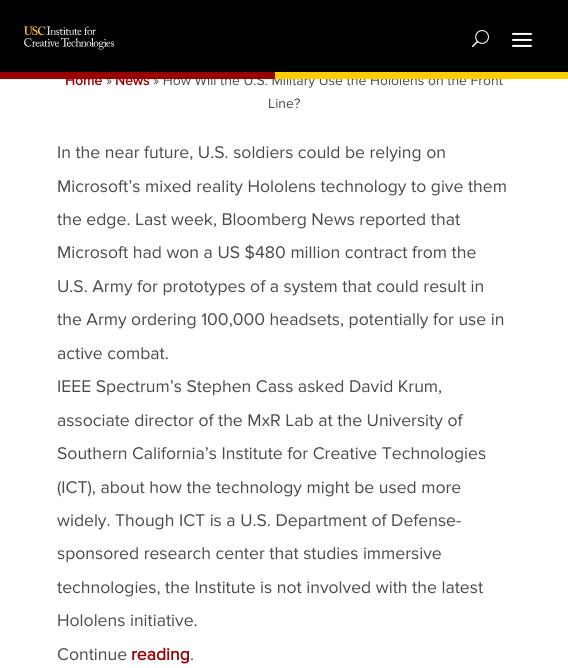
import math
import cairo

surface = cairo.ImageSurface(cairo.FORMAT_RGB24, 568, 668)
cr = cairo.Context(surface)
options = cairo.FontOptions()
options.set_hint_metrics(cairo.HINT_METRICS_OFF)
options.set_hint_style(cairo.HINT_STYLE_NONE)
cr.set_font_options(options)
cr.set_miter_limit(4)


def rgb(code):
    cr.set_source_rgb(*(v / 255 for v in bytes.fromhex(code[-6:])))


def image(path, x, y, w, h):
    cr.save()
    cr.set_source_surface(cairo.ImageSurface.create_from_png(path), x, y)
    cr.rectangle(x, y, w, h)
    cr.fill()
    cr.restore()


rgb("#ffffff")
cr.paint()
rgb("#000000")
cr.rectangle(0, 0, 568, 72)
cr.fill()
image("img/1.png", 24, 26, 90, 24)
image("img/2.png", 472, 30, 17, 18)
image("img/3.png", 512, 32, 20, 15)
cr.select_font_face("Proxima Nova", cairo.FONT_SLANT_NORMAL, cairo.FONT_WEIGHT_BOLD)
cr.set_font_size(14)
rgb("#990000")
cr.move_to(65, 85)
cr.show_text("Home")
cr.select_font_face("Proxima Nova")
rgb("#4a4a4a")
cr.move_to(106, 85)
cr.show_text("»")
cr.select_font_face("Proxima Nova", cairo.FONT_SLANT_NORMAL, cairo.FONT_WEIGHT_BOLD)
rgb("#990000")
cr.move_to(115, 85)
cr.show_text("News")
cr.select_font_face("Proxima Nova")
rgb("#4a4a4a")
cr.move_to(153, 85)
cr.show_text("» How Will the U.S. Military Use the Hololens on the Front")
rgb("#990000")
cr.rectangle(0, 72, 275, 7)
cr.fill()
rgb("#ffcc00")
cr.rectangle(275, 72, 293, 7)
cr.fill()
rgb("#4a4a4a")
cr.move_to(268, 108)
cr.show_text("Line?")
cr.set_font_size(17.6)
for x, y, s in [
    (57, 158, "In the near future, U.S. soldiers could be relying on"),
    (57, 192, "Microsoft’s mixed reality Hololens technology to give them"),
    (57, 225, "the edge. Last week, Bloomberg News reported that"),
    (57, 258, "Microsoft had won a US $480 million contract from the"),
    (57, 292, "U.S. Army for prototypes of a system that could result in"),
    (57, 325, "the Army ordering 100,000 headsets, potentially for use in"),
    (57, 359, "active combat."),
    (57, 392, "IEEE Spectrum’s Stephen Cass asked David Krum,"),
    (57, 426, "associate director of the MxR Lab at the University of"),
    (57, 459, "Southern California’s Institute for Creative Technologies"),
    (57, 493, "(ICT), about how the technology might be used more"),
    (57, 526, "widely. Though ICT is a U.S. Department of Defense-"),
    (57, 559, "sponsored research center that studies immersive"),
    (57, 593, "technologies, the Institute is not involved with the latest"),
    (57, 626, "Hololens initiative."),
    (57, 660, "Continue"),
]:
    cr.move_to(x, y)
    cr.show_text(s)
cr.select_font_face("Proxima Nova", cairo.FONT_SLANT_NORMAL, cairo.FONT_WEIGHT_BOLD)
rgb("#990000")
cr.move_to(131, 660)
cr.show_text("reading")
cr.select_font_face("Proxima Nova")
rgb("#4a4a4a")
cr.move_to(190, 660)
cr.show_text(".")
surface.write_to_png("page.png")
